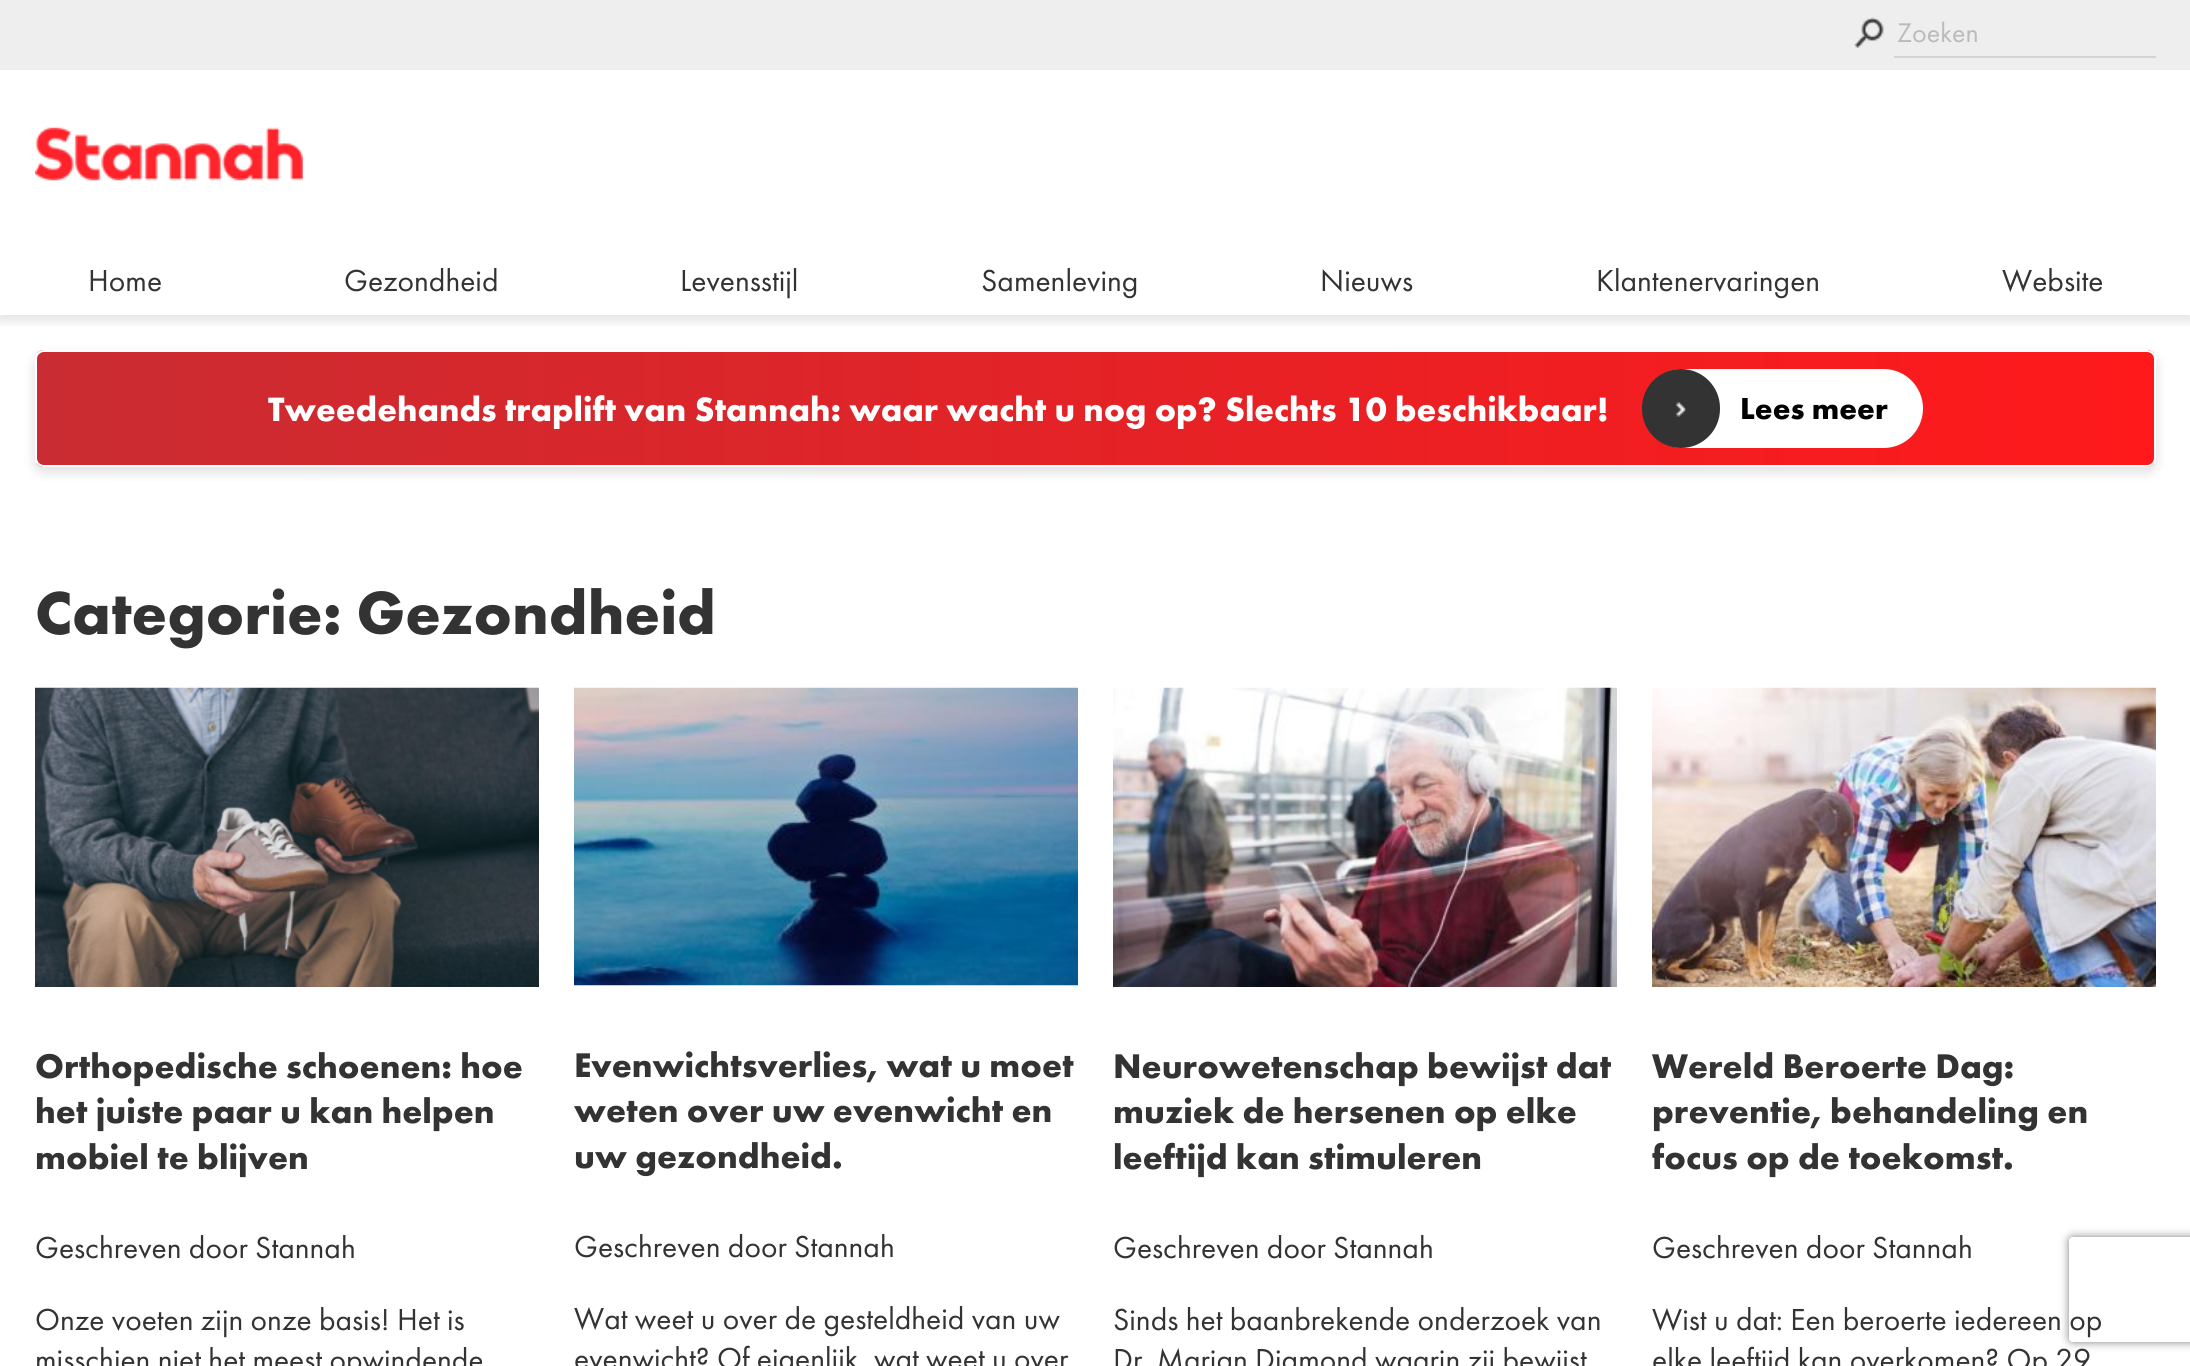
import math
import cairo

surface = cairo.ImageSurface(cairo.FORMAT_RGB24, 2190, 1366)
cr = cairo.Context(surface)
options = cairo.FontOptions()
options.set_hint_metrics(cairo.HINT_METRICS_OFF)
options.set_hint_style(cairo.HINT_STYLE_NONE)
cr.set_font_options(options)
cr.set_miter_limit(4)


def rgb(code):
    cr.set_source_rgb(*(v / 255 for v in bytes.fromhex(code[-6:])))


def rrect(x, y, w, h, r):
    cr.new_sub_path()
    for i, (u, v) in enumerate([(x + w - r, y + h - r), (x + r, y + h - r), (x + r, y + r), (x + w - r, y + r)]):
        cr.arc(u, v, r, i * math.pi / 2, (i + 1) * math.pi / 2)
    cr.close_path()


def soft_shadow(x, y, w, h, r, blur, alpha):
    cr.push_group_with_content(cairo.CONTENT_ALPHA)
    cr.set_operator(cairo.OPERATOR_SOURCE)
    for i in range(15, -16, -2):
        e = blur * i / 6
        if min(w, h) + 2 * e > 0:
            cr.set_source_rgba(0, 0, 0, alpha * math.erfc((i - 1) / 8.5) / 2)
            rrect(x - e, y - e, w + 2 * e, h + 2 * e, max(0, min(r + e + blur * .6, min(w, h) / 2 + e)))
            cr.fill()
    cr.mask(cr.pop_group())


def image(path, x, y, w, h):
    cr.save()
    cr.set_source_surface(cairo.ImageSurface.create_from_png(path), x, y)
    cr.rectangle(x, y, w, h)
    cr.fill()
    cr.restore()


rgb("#ffffff")
cr.paint()
cr.save()
cr.rectangle(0, 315, 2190, 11)
cr.clip()
rgb("#000000")
soft_shadow(-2, 4, 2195, 318, 0, 5, 0.1)
cr.restore()
rgb("#eeeeee")
cr.rectangle(0, 0, 2190, 70)
cr.fill()
rgb("#d4d4d4")
cr.rectangle(1894, 56, 262, 2)
cr.fill()
image("img/1.png", 1854, 17, 30, 31)
image("img/2.png", 35, 127, 268, 54)
rgb("#000000")
soft_shadow(33, 354, 2125, 120, 11, 5, 0.1)
cr.save()
rrect(35, 350, 2121, 117, 9)
cr.clip()
gradient = cairo.LinearGradient(37, 409, 2154, 409)
gradient.add_color_stop_rgba(0, 0.788, 0.173, 0.196, 1)
gradient.add_color_stop_rgba(1, 1, 0.098, 0.106, 1)
cr.set_source(gradient)
cr.rectangle(37, 350, 2117, 117)
cr.fill()
cr.restore()
rrect(36, 351, 2119, 115, 8)
rgb("#ffffff")
cr.stroke()
rrect(1643, 369, 280, 79, 39.5)
cr.fill()
rgb("#333333")
rrect(1642, 369, 78, 79, 39)
cr.fill()
image("img/3.png", 1676, 402, 10, 15)
image("img/4.png", 35, 687, 504, 300)
image("img/5.png", 574, 687, 504, 299)
image("img/6.png", 1113, 687, 504, 300)
image("img/7.png", 1652, 687, 504, 300)
cr.save()
cr.set_fill_rule(cairo.FILL_RULE_EVEN_ODD)
cr.new_path()
cr.move_to(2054, 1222)
cr.line_to(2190, 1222)
cr.line_to(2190, 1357)
cr.line_to(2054, 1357)
cr.close_path()
cr.move_to(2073, 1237)
cr.line_to(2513, 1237)
cr.curve_to(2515, 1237, 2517, 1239, 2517, 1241)
cr.line_to(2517, 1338)
cr.curve_to(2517, 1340, 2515, 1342, 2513, 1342)
cr.line_to(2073, 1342)
cr.curve_to(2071, 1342, 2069, 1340, 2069, 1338)
cr.line_to(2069, 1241)
cr.curve_to(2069, 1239, 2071, 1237, 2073, 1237)
cr.close_path()
cr.clip()
rgb("#808080")
soft_shadow(2069, 1237, 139, 105, 4, 4.5, 1)
cr.restore()
cr.select_font_face("Futura PT")
cr.set_font_size(28)
rgb("#bbbbbb")
cr.move_to(1897, 42)
cr.show_text("Zoeken")
cr.set_font_size(31.5)
rgb("#333333")
for x, y, s in [
    (88, 291, "Home"),
    (344, 291, "Gezondheid"),
    (680, 291, "Levensstijl"),
    (981, 291, "Samenleving"),
    (1320, 291, "Nieuws"),
    (1596, 291, "Klantenervaringen"),
    (2002, 291, "Website"),
]:
    cr.move_to(x, y)
    cr.show_text(s)
cr.select_font_face("Futura PT", cairo.FONT_SLANT_NORMAL, cairo.FONT_WEIGHT_BOLD)
cr.set_font_size(35)
rgb("#ffffff")
cr.move_to(268, 421)
cr.show_text("Tweedehands traplift van Stannah: waar wacht u nog op? Slechts 10 beschikbaar!")
cr.set_font_size(31.5)
rgb("#000000")
cr.move_to(1740, 419)
cr.show_text("Lees meer")
cr.set_font_size(63)
rgb("#333333")
cr.move_to(35, 634)
cr.show_text("Categorie: Gezondheid")
cr.set_font_size(35.5)
for x, y, s in [
    (35, 1078, "Orthopedische schoenen: hoe"),
    (35, 1123, "het juiste paar u kan helpen"),
    (35, 1169, "mobiel te blijven"),
]:
    cr.move_to(x, y)
    cr.show_text(s)
cr.select_font_face("Futura PT")
cr.set_font_size(31.5)
for x, y, s in [
    (35, 1258, "Geschreven door Stannah"),
    (35, 1330, "Onze voeten zijn onze basis! Het is"),
    (35, 1370, "misschien niet het meest opwindende"),
]:
    cr.move_to(x, y)
    cr.show_text(s)
cr.select_font_face("Futura PT", cairo.FONT_SLANT_NORMAL, cairo.FONT_WEIGHT_BOLD)
cr.set_font_size(35.5)
for x, y, s in [
    (574, 1077, "Evenwichtsverlies, wat u moet"),
    (574, 1122, "weten over uw evenwicht en"),
    (574, 1168, "uw gezondheid."),
]:
    cr.move_to(x, y)
    cr.show_text(s)
cr.select_font_face("Futura PT")
cr.set_font_size(31.5)
for x, y, s in [
    (574, 1257, "Geschreven door Stannah"),
    (574, 1329, "Wat weet u over de gesteldheid van uw"),
    (574, 1369, "evenwicht? Of eigenlijk, wat weet u over"),
]:
    cr.move_to(x, y)
    cr.show_text(s)
cr.select_font_face("Futura PT", cairo.FONT_SLANT_NORMAL, cairo.FONT_WEIGHT_BOLD)
cr.set_font_size(35.5)
for x, y, s in [
    (1113, 1078, "Neurowetenschap bewijst dat"),
    (1113, 1123, "muziek de hersenen op elke"),
    (1113, 1169, "leeftijd kan stimuleren"),
]:
    cr.move_to(x, y)
    cr.show_text(s)
cr.select_font_face("Futura PT")
cr.set_font_size(31.5)
for x, y, s in [
    (1113, 1258, "Geschreven door Stannah"),
    (1113, 1330, "Sinds het baanbrekende onderzoek van"),
    (1113, 1370, "Dr. Marian Diamond waarin zij bewijst"),
]:
    cr.move_to(x, y)
    cr.show_text(s)
cr.select_font_face("Futura PT", cairo.FONT_SLANT_NORMAL, cairo.FONT_WEIGHT_BOLD)
cr.set_font_size(35.5)
for x, y, s in [
    (1652, 1078, "Wereld Beroerte Dag:"),
    (1652, 1123, "preventie, behandeling en"),
    (1652, 1169, "focus op de toekomst."),
]:
    cr.move_to(x, y)
    cr.show_text(s)
cr.select_font_face("Futura PT")
cr.set_font_size(31.5)
for x, y, s in [
    (1652, 1258, "Geschreven door Stannah"),
    (1652, 1330, "Wist u dat: Een beroerte iedereen op"),
    (1652, 1370, "elke leeftijd kan overkomen? Op 29"),
]:
    cr.move_to(x, y)
    cr.show_text(s)
surface.write_to_png("page.png")
